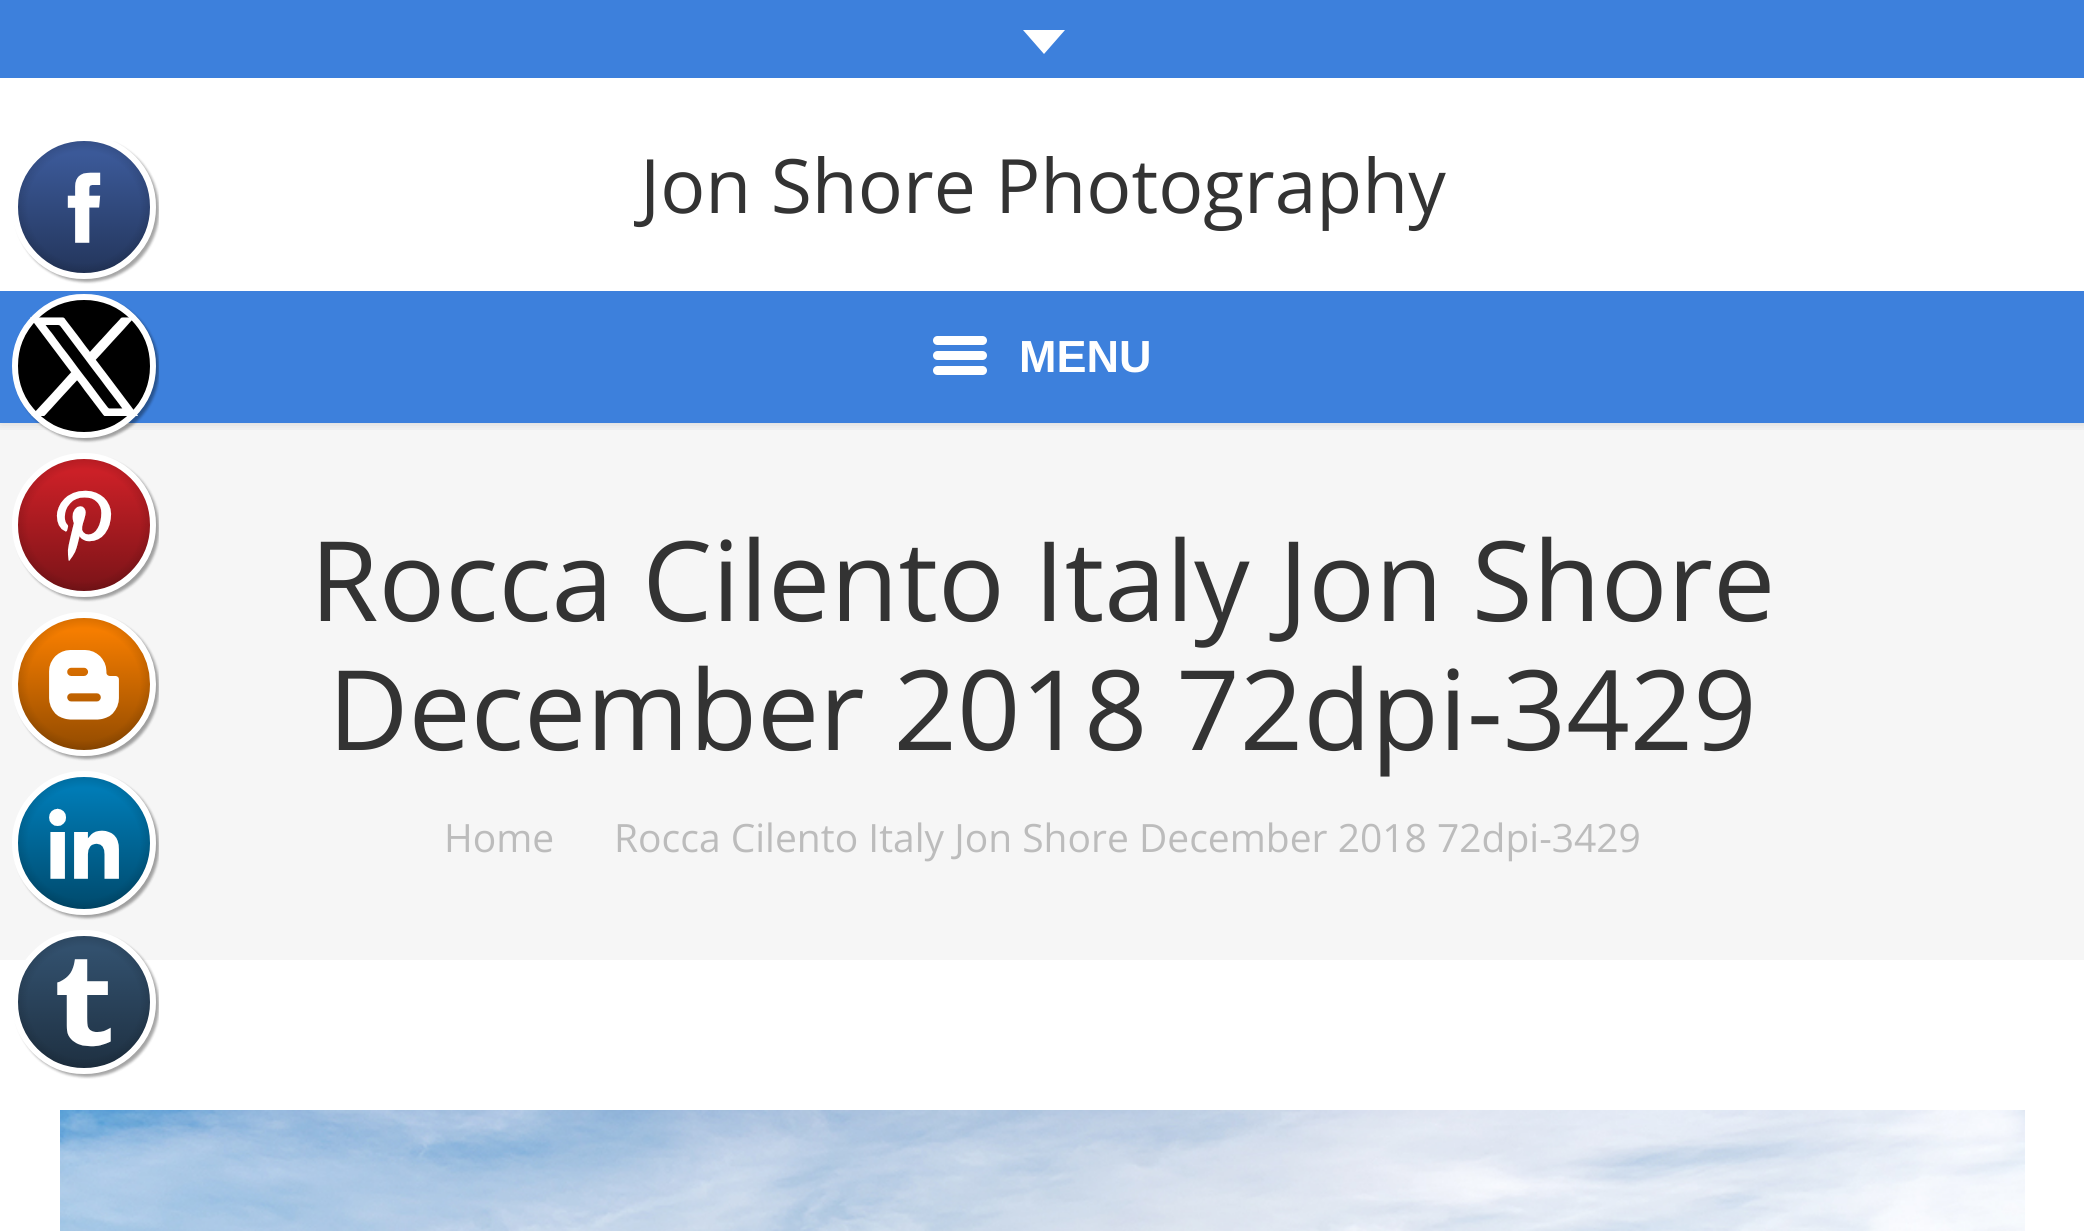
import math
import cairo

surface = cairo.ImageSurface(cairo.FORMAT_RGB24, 2084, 1231)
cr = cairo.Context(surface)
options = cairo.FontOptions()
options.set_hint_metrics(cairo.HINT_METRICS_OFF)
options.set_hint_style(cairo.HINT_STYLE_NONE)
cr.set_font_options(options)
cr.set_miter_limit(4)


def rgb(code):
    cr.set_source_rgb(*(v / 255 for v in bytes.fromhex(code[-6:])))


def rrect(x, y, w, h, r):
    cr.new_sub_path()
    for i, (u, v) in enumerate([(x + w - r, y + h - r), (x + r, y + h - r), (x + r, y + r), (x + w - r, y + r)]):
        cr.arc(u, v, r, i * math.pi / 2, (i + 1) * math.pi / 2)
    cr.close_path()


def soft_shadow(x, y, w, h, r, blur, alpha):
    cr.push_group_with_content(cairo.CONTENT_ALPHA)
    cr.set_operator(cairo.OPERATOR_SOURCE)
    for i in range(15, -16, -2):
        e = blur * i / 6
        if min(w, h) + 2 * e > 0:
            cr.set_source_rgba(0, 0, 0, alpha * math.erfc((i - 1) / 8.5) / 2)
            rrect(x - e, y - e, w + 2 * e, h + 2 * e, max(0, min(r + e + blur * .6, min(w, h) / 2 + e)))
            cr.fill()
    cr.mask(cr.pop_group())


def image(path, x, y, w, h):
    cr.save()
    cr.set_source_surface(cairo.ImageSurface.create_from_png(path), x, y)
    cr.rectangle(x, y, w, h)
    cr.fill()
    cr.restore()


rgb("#ffffff")
cr.paint()
rgb("#f6f6f6")
cr.rectangle(0, 423, 2084, 537)
cr.fill()
cr.save()
cr.rectangle(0, 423, 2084, 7)
cr.clip()
rgb("#000000")
soft_shadow(0, -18, 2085, 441, 0, 6, 0.15)
cr.restore()
rgb("#3d80dc")
cr.rectangle(0, 291, 2084, 132)
cr.fill()
image("img/1.png", 12, 141, 147, 938)
cr.rectangle(0, 0, 2084, 78)
cr.fill()
rgb("#ffffff")
cr.new_path()
cr.move_to(1023, 30)
cr.line_to(1065, 30)
cr.line_to(1044, 54)
cr.close_path()
cr.fill()
rrect(933, 351, 54, 9, 4.5)
cr.fill()
rrect(933, 336, 54, 9, 4.5)
cr.fill()
rrect(933, 366, 54, 9, 4.5)
cr.fill()
image("img/2.png", 60, 1110, 1965, 121)
cr.select_font_face("Open Sans")
cr.set_font_size(75)
rgb("#333333")
cr.move_to(640, 213)
cr.show_text("Jon Shore Photography")
cr.select_font_face("Liberation Sans", cairo.FONT_SLANT_NORMAL, cairo.FONT_WEIGHT_BOLD)
cr.set_font_size(45)
rgb("#ffffff")
cr.move_to(1019, 372)
cr.show_text("MENU")
cr.select_font_face("Open Sans")
cr.set_font_size(111)
rgb("#333333")
cr.move_to(310, 621)
cr.show_text("Rocca Cilento Italy Jon Shore")
cr.move_to(328, 750)
cr.show_text("December 2018 72dpi-3429")
cr.set_font_size(39)
rgb("#bcbcbc")
cr.move_to(444, 852)
cr.show_text("Home")
cr.move_to(614, 852)
cr.show_text("Rocca Cilento Italy Jon Shore December 2018 72dpi-3429")
surface.write_to_png("page.png")
